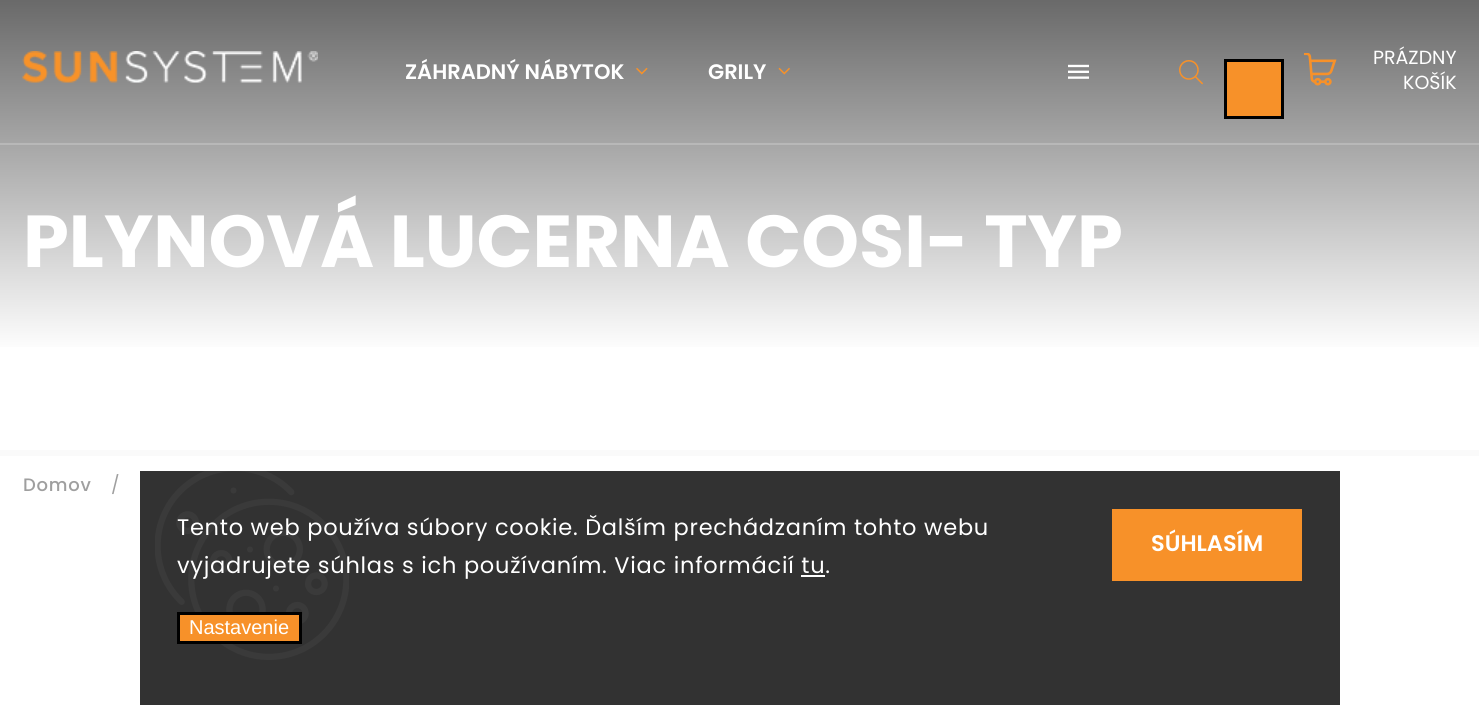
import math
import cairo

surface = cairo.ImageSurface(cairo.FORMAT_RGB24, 1479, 705)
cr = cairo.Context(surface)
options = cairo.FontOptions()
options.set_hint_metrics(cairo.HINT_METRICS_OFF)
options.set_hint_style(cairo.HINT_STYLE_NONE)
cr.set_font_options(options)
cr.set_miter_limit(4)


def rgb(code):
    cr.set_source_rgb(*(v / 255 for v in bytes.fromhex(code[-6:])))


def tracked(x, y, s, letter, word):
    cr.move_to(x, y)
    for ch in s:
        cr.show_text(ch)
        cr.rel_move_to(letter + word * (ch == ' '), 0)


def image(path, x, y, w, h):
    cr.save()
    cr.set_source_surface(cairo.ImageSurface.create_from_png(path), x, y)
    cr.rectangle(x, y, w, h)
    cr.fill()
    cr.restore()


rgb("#ffffff")
cr.paint()
gradient = cairo.LinearGradient(740, -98, 740, 353)
gradient.add_color_stop_rgba(0, 0.251, 0.251, 0.251, 1)
gradient.add_color_stop_rgba(1, 1, 1, 1, 1)
cr.set_source(gradient)
cr.rectangle(0, 0, 1479, 347)
cr.fill()
rgb("#b8b8b8")
cr.rectangle(0, 143, 1479, 2)
cr.fill()
image("img/1.png", 636, 67, 12, 8)
image("img/2.png", 778, 67, 12, 8)
image("img/3.png", 1068, 64, 21, 15)
image("img/4.png", 22, 51, 296, 32)
image("img/5.png", 1179, 60, 24, 25)
rgb("#f79129")
cr.rectangle(1225.5, 60.5, 57, 57)
cr.fill_preserve()
rgb("#000000")
cr.set_line_width(3)
cr.stroke()
image("img/6.png", 1304, 53, 33, 33)
rgb("#fafafa")
cr.rectangle(0, 450, 1479, 6)
cr.fill()
rgb("#323232")
cr.rectangle(140, 471, 1200, 234)
cr.fill()
image("img/7.png", 155, 471, 194, 189)
rgb("#ffffff")
cr.rectangle(801, 575, 24, 2)
cr.fill()
rgb("#f79129")
cr.rectangle(178.5, 613.5, 122, 29)
cr.fill_preserve()
rgb("#000000")
cr.stroke()
rgb("#f79129")
cr.rectangle(1112, 509, 190, 72)
cr.fill()
cr.select_font_face("Poppins SemiBold")
cr.set_font_size(21)
rgb("#ffffff")
cr.move_to(405, 79)
cr.show_text("ZÁHRADNÝ NÁBYTOK")
cr.move_to(708, 79)
cr.show_text("GRILY")
cr.select_font_face("Poppins")
cr.set_font_size(19)
cr.move_to(1373, 64)
cr.show_text("PRÁZDNY")
cr.move_to(1403, 89)
cr.show_text("KOŠÍK")
cr.select_font_face("Poppins", cairo.FONT_SLANT_NORMAL, cairo.FONT_WEIGHT_BOLD)
cr.set_font_size(73.5)
cr.move_to(23, 267)
cr.show_text("PLYNOVÁ LUCERNA COSI- TYP")
cr.select_font_face("Poppins Medium")
cr.set_font_size(18)
rgb("#9f9f9f")
tracked(23, 491, "Domov", 0.75, 0)
cr.select_font_face("Poppins")
tracked(111, 491, "/", 0.75, 0)
cr.set_font_size(22.5)
rgb("#ffffff")
tracked(177, 535, "Tento web používa súbory cookie. Ďalším prechádzaním tohto webu", 0.75, 0)
tracked(177, 573, "vyjadrujete súhlas s ich používaním. Viac informácií tu.", 0.75, 0)
cr.select_font_face("Liberation Sans")
cr.set_font_size(20)
cr.move_to(189, 634)
cr.show_text("Nastavenie")
cr.select_font_face("Poppins SemiBold")
cr.set_font_size(22.5)
cr.move_to(1151, 551)
cr.show_text("SÚHLASÍM")
surface.write_to_png("page.png")
